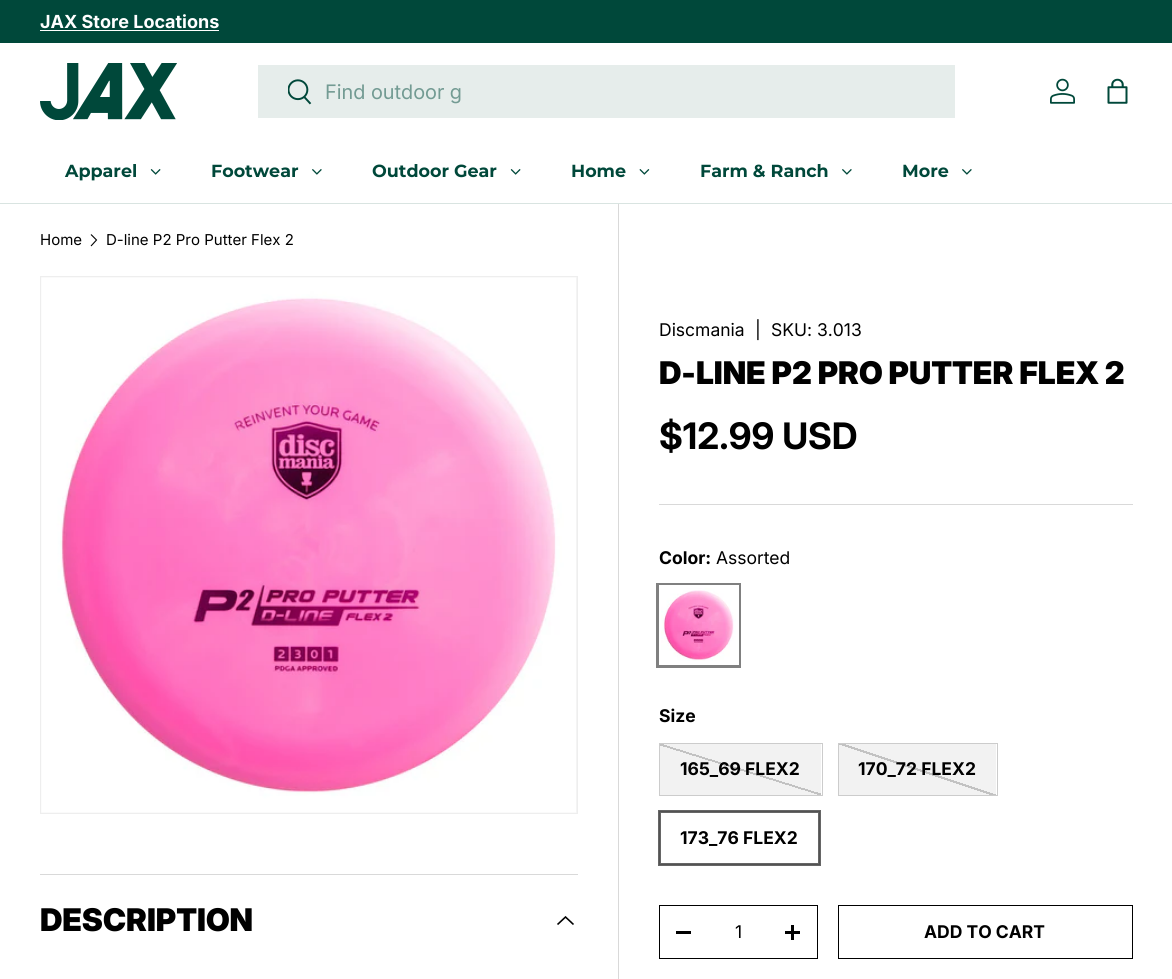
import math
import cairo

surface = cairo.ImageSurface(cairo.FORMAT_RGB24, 1172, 979)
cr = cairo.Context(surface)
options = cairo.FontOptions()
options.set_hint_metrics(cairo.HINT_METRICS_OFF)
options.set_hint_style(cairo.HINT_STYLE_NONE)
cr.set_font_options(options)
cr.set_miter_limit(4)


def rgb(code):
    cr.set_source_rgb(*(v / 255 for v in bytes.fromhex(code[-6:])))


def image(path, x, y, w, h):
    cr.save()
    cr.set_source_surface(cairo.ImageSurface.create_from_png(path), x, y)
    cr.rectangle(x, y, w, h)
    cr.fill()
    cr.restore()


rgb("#ffffff")
cr.paint()
for x, y, w, h, color in [
    (0, 0, 1172, 43, "#00483a"),
    (40, 30, 179, 1, "#ffffff"),
    (0, 203, 1172, 1, "#d9e4e1"),
]:
    rgb(color)
    cr.rectangle(x, y, w, h)
    cr.fill()
image("img/1.png", 40, 63, 137, 57)
rgb("#e6edeb")
cr.rectangle(258, 65, 697, 53)
cr.fill()
image("img/2.png", 288, 79, 24, 26)
image("img/3.png", 1050, 78, 25, 26)
image("img/4.png", 1107, 78, 21, 26)
image("img/5.png", 150, 169, 11, 6)
image("img/6.png", 312, 169, 10, 6)
image("img/5.png", 510, 169, 11, 6)
image("img/7.png", 639, 169, 11, 6)
image("img/6.png", 842, 169, 10, 6)
image("img/6.png", 962, 169, 10, 6)
cr.new_path()
cr.move_to(91, 234.5)
cr.line_to(96.5, 240)
cr.line_to(91, 246)
rgb("#000000")
cr.set_line_width(1.1)
cr.stroke()
rgb("#d9d9d9")
cr.rectangle(40, 874, 538, 1)
cr.fill()
cr.new_path()
cr.move_to(573.5, 924.5)
cr.line_to(565.5, 917)
cr.line_to(557.5, 924.5)
rgb("#000000")
cr.set_line_width(1.6)
cr.stroke()
rgb("#f4f4f4")
cr.rectangle(40.5, 276.5, 537, 537)
cr.fill_preserve()
rgb("#eeeeee")
cr.set_line_width(1)
cr.stroke()
image("img/8.png", 41, 277, 535, 536)
rgb("#d9d9d9")
cr.rectangle(618, 204, 1, 775)
cr.fill()
cr.rectangle(659, 504, 474, 1)
cr.fill()
cr.rectangle(657.5, 584.5, 82, 82)
rgb("#808080")
cr.set_line_width(3)
cr.stroke()
cr.rectangle(660.5, 586.5, 77, 77)
rgb("#ffffff")
cr.stroke()
image("img/9.png", 661, 588, 75, 73)
gradient = cairo.LinearGradient(755, 723, 726, 816)
gradient.add_color_stop_rgba(0.49, 0.949, 0.949, 0.949, 1)
gradient.add_color_stop_rgba(0.49, 0.761, 0.761, 0.761, 1)
gradient.add_color_stop_rgba(0.51, 0.761, 0.761, 0.761, 1)
gradient.add_color_stop_rgba(0.51, 0.949, 0.949, 0.949, 1)
cr.set_source(gradient)
cr.rectangle(660, 744, 161, 51)
cr.fill()
cr.rectangle(659.5, 743.5, 163, 52)
rgb("#cccccc")
cr.set_line_width(1)
cr.stroke()
gradient = cairo.LinearGradient(933, 723, 902, 816)
gradient.add_color_stop_rgba(0.49, 0.949, 0.949, 0.949, 1)
gradient.add_color_stop_rgba(0.49, 0.761, 0.761, 0.761, 1)
gradient.add_color_stop_rgba(0.51, 0.761, 0.761, 0.761, 1)
gradient.add_color_stop_rgba(0.51, 0.949, 0.949, 0.949, 1)
cr.set_source(gradient)
cr.rectangle(839, 744, 157, 51)
cr.fill()
cr.rectangle(838.5, 743.5, 159, 52)
rgb("#cccccc")
cr.stroke()
cr.rectangle(659.5, 811.5, 160, 53)
cr.stroke()
cr.rectangle(659.5, 811.5, 160, 53)
cr.set_source_rgba(0, 0, 0, 0.6)
cr.set_line_width(3)
cr.stroke()
cr.rectangle(659.5, 905.5, 158, 53)
rgb("#000000")
cr.set_line_width(1)
cr.stroke()
for x, y, w, h, color in [
    (676, 931, 15, 3, "#000000"),
    (785, 931, 15, 3, "#000000"),
    (791, 925, 3, 15, "#000000"),
]:
    rgb(color)
    cr.rectangle(x, y, w, h)
    cr.fill()
cr.rectangle(838.5, 905.5, 294, 53)
cr.stroke()
cr.select_font_face("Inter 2", cairo.FONT_SLANT_NORMAL, cairo.FONT_WEIGHT_BOLD)
cr.set_font_size(18)
rgb("#ffffff")
cr.move_to(40, 28)
cr.show_text("JAX Store Locations")
cr.select_font_face("Inter 2")
cr.set_font_size(20)
rgb("#739b93")
cr.move_to(325, 99)
cr.show_text("Find outdoor g")
cr.select_font_face("Montserrat", cairo.FONT_SLANT_NORMAL, cairo.FONT_WEIGHT_BOLD)
cr.set_font_size(17.5)
rgb("#00483a")
for x, y, s in [
    (65, 177, "Apparel"),
    (211, 177, "Footwear"),
    (372, 177, "Outdoor Gear"),
    (571, 177, "Home"),
    (700, 177, "Farm & Ranch"),
    (902, 177, "More"),
]:
    cr.move_to(x, y)
    cr.show_text(s)
cr.select_font_face("Inter")
cr.set_font_size(15)
rgb("#000000")
cr.move_to(40, 245)
cr.show_text("Home")
cr.move_to(106, 245)
cr.show_text("D-line P2 Pro Putter Flex 2")
cr.select_font_face("Inter Black")
cr.set_font_size(31.25)
cr.move_to(40, 931)
cr.show_text("DESCRIPTION")
cr.select_font_face("Inter")
cr.set_font_size(17.5)
for x, y, s in [
    (659, 336, "Discmania"),
    (755, 336, "|"),
    (771, 336, "SKU: 3.013"),
]:
    cr.move_to(x, y)
    cr.show_text(s)
cr.select_font_face("Inter Black")
cr.set_font_size(31.25)
cr.move_to(659, 384)
cr.show_text("D-LINE P2 PRO PUTTER FLEX 2")
cr.select_font_face("Inter", cairo.FONT_SLANT_NORMAL, cairo.FONT_WEIGHT_BOLD)
cr.set_font_size(36.5)
cr.move_to(659, 449)
cr.show_text("$12.99 USD")
cr.select_font_face("Inter 2", cairo.FONT_SLANT_NORMAL, cairo.FONT_WEIGHT_BOLD)
cr.set_font_size(17.5)
cr.move_to(659, 564)
cr.show_text("Color:")
cr.select_font_face("Inter")
cr.move_to(716, 564)
cr.show_text("Assorted")
cr.select_font_face("Inter 2", cairo.FONT_SLANT_NORMAL, cairo.FONT_WEIGHT_BOLD)
for x, y, s in [
    (659, 722, "Size"),
    (680, 775, "165_69 FLEX2"),
    (858, 775, "170_72 FLEX2"),
    (680, 844, "173_76 FLEX2"),
]:
    cr.move_to(x, y)
    cr.show_text(s)
cr.select_font_face("Inter")
cr.move_to(735, 938)
cr.show_text("1")
cr.select_font_face("Inter 2", cairo.FONT_SLANT_NORMAL, cairo.FONT_WEIGHT_BOLD)
cr.move_to(924, 938)
cr.show_text("ADD TO CART")
surface.write_to_png("page.png")
